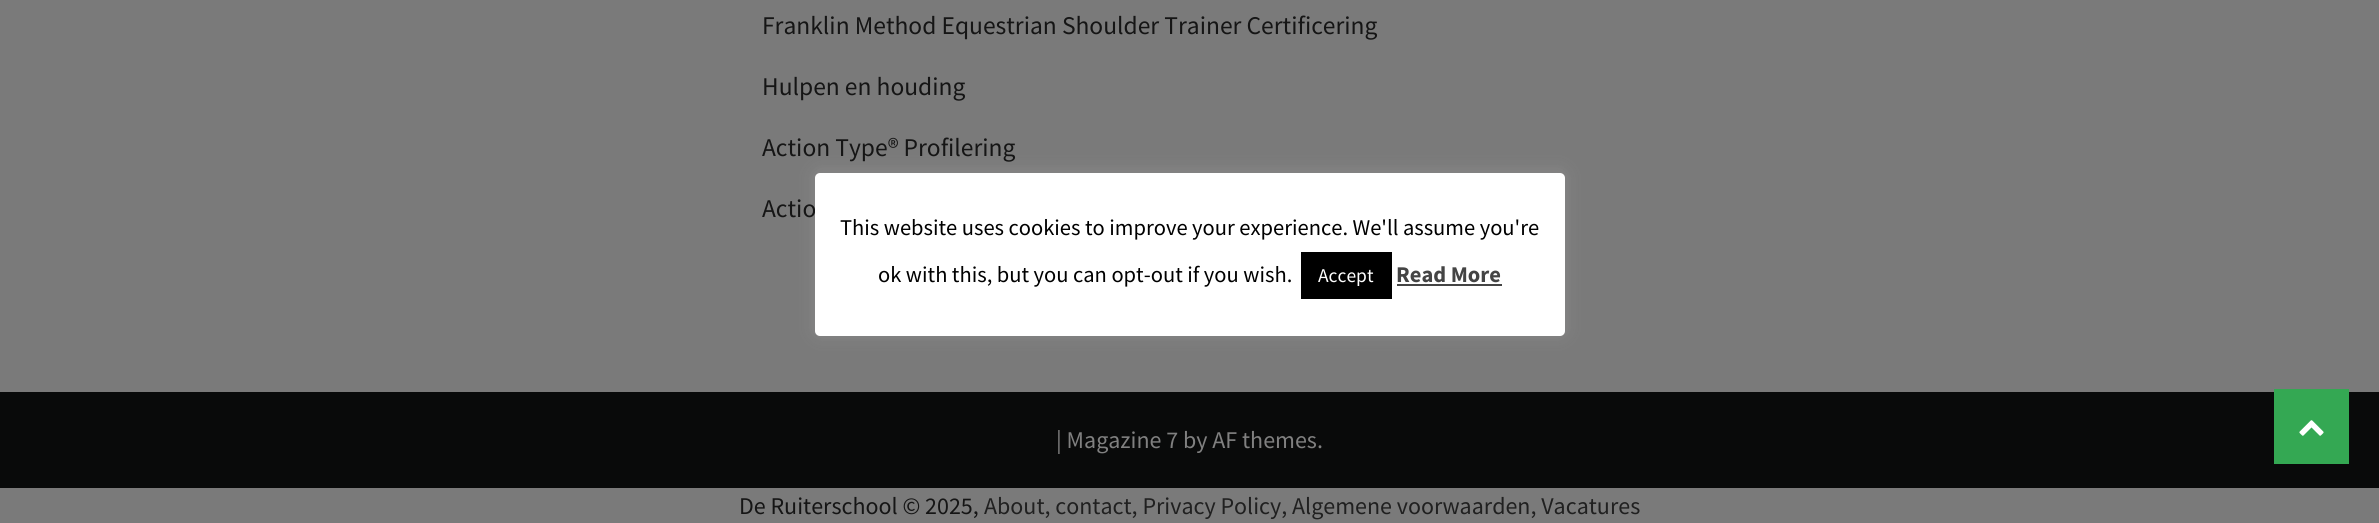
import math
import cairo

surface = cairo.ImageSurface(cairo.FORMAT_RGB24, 2379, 523)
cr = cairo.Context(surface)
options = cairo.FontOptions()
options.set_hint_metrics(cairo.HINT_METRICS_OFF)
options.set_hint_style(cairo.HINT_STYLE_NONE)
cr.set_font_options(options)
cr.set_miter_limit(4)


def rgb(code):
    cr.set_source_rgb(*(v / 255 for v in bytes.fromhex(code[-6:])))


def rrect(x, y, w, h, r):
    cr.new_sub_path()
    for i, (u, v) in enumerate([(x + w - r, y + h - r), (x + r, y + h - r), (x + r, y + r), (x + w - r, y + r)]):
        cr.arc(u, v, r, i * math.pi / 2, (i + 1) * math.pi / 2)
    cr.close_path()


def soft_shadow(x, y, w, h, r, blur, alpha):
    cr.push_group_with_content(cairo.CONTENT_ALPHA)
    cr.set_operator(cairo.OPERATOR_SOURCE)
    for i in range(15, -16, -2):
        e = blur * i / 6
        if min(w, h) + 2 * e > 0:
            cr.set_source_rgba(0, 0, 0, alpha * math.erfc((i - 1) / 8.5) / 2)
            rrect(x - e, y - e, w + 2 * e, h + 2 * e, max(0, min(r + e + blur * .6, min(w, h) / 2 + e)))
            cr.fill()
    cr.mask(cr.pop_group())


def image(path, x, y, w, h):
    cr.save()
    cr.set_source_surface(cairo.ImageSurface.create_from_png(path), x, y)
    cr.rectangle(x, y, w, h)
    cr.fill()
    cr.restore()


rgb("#7a7a7a")
cr.paint()
rgb("#090a0a")
cr.rectangle(0, 392, 2379, 96)
cr.fill()
rgb("#acabab")
soft_shadow(815, 171, 750, 164, 5, 7.5, 0.3)
rgb("#34a853")
cr.rectangle(2274, 389, 75, 75)
cr.fill()
image("img/1.png", 2299, 420, 25, 16)
cr.select_font_face("Source Sans Pro")
cr.set_font_size(25.5)
rgb("#151515")
for x, y, s in [
    (762, 34, "Franklin Method Equestrian Shoulder Trainer Certificering"),
    (762, 95, "Hulpen en houding"),
    (762, 156, "Action Type® Profilering"),
    (762, 217, "Actio"),
]:
    cr.move_to(x, y)
    cr.show_text(s)
cr.set_font_size(24)
rgb("#808080")
cr.move_to(1056, 448)
cr.show_text("| Magazine 7 by AF themes.")
rgb("#ffffff")
rrect(815, 173, 750, 163, 5)
cr.fill()
cr.set_font_size(22.5)
rgb("#000000")
cr.move_to(840, 235)
cr.show_text("This website uses cookies to improve your experience. We'll assume you're")
cr.move_to(878, 282)
cr.show_text("ok with this, but you can opt-out if you wish.")
cr.rectangle(1301, 252, 91, 47)
cr.fill()
cr.set_font_size(19.5)
rgb("#ffffff")
cr.move_to(1318, 282)
cr.show_text("Accept")
cr.select_font_face("Source Sans Pro", cairo.FONT_SLANT_NORMAL, cairo.FONT_WEIGHT_BOLD)
cr.set_font_size(22.5)
rgb("#444444")
cr.move_to(1396, 282)
cr.show_text("Read More")
cr.rectangle(1397, 284, 105, 2)
cr.fill()
cr.select_font_face("Source Sans Pro")
cr.set_font_size(24)
rgb("#151515")
cr.move_to(739, 514)
cr.show_text("De Ruiterschool © 2025,")
rgb("#202020")
cr.move_to(984, 514)
cr.show_text("About, contact, Privacy Policy, Algemene voorwaarden, Vacatures")
surface.write_to_png("page.png")
